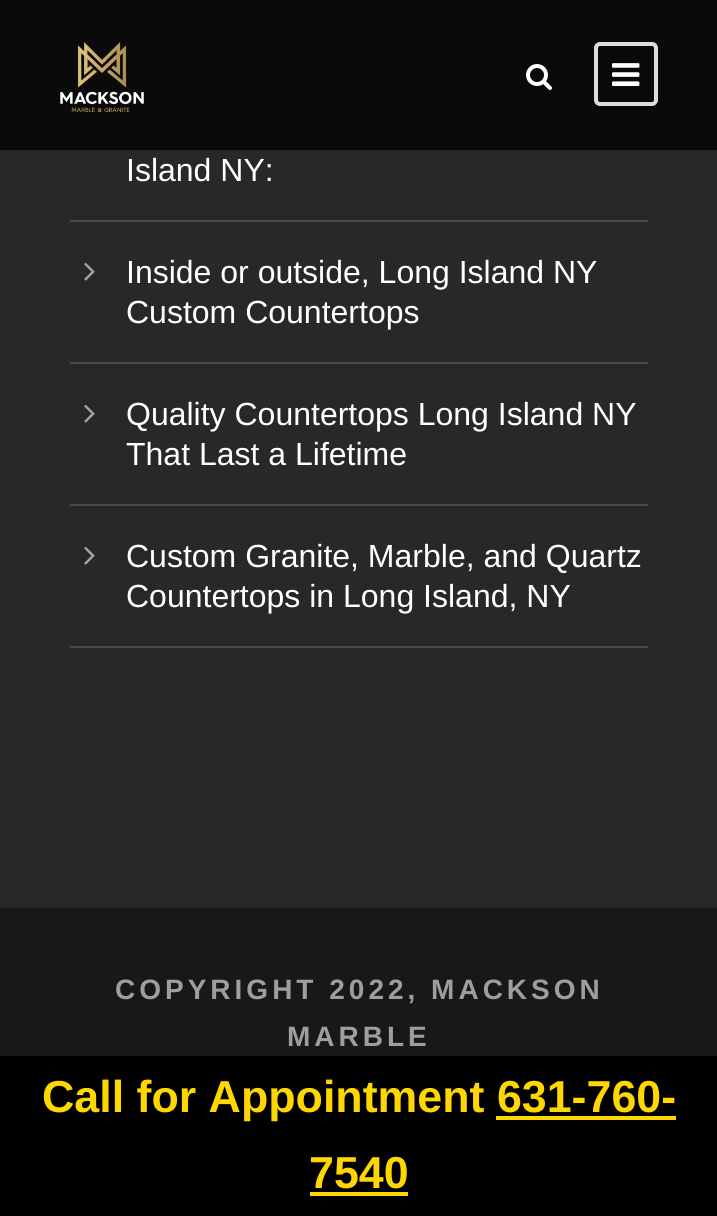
import math
import cairo

surface = cairo.ImageSurface(cairo.FORMAT_RGB24, 717, 1216)
cr = cairo.Context(surface)
options = cairo.FontOptions()
options.set_hint_metrics(cairo.HINT_METRICS_OFF)
options.set_hint_style(cairo.HINT_STYLE_NONE)
cr.set_font_options(options)
cr.set_miter_limit(4)


def rgb(code):
    cr.set_source_rgb(*(v / 255 for v in bytes.fromhex(code[-6:])))


def tracked(x, y, s, letter, word):
    cr.move_to(x, y)
    for ch in s:
        cr.show_text(ch)
        cr.rel_move_to(letter + word * (ch == ' '), 0)


def rrect(x, y, w, h, r):
    cr.new_sub_path()
    for i, (u, v) in enumerate([(x + w - r, y + h - r), (x + r, y + h - r), (x + r, y + r), (x + w - r, y + r)]):
        cr.arc(u, v, r, i * math.pi / 2, (i + 1) * math.pi / 2)
    cr.close_path()


def image(path, x, y, w, h):
    cr.save()
    cr.set_source_surface(cairo.ImageSurface.create_from_png(path), x, y)
    cr.rectangle(x, y, w, h)
    cr.fill()
    cr.restore()


rgb("#282828")
cr.paint()
rgb("#0a0a0a")
cr.rectangle(0, 0, 717, 150)
cr.fill()
image("img/1.png", 60, 42, 84, 71)
image("img/2.png", 526, 64, 26, 26)
rrect(596, 44, 60, 60, 4)
rgb("#dddddd")
cr.set_line_width(4)
cr.stroke()
image("img/3.png", 612, 63, 28, 23)
rgb("#494949")
cr.rectangle(70, 220, 578, 2)
cr.fill()
cr.rectangle(70, 362, 578, 2)
cr.fill()
image("img/4.png", 84, 262, 11, 19)
cr.rectangle(70, 504, 578, 2)
cr.fill()
image("img/4.png", 84, 404, 11, 19)
cr.rectangle(70, 646, 578, 2)
cr.fill()
image("img/4.png", 84, 546, 11, 19)
for x, y, w, h, color in [
    (0, 908, 717, 148, "#181818"),
    (0, 1056, 717, 160, "#000000"),
    (496, 1116, 180, 4, "#ffd700"),
    (310, 1192, 98, 4, "#ffd700"),
]:
    rgb(color)
    cr.rectangle(x, y, w, h)
    cr.fill()
cr.select_font_face("Liberation Sans")
cr.set_font_size(32)
rgb("#ffffff")
for x, y, s in [
    (126, 181, "Island NY:"),
    (126, 283, "Inside or outside, Long Island NY"),
    (126, 323, "Custom Countertops"),
    (126, 425, "Quality Countertops Long Island NY"),
    (126, 465, "That Last a Lifetime"),
    (126, 567, "Custom Granite, Marble, and Quartz"),
    (126, 607, "Countertops in Long Island, NY"),
]:
    cr.move_to(x, y)
    cr.show_text(s)
cr.select_font_face("Liberation Sans", cairo.FONT_SLANT_NORMAL, cairo.FONT_WEIGHT_BOLD)
cr.set_font_size(28)
rgb("#9e9e9e")
tracked(115, 999, "COPYRIGHT 2022, MACKSON", 4, 0)
tracked(287, 1046, "MARBLE", 4, 0)
cr.set_font_size(44.75)
rgb("#ffd700")
cr.move_to(42, 1112)
cr.show_text("Call for Appointment 631-760-")
cr.move_to(309, 1188)
cr.show_text("7540")
surface.write_to_png("page.png")
